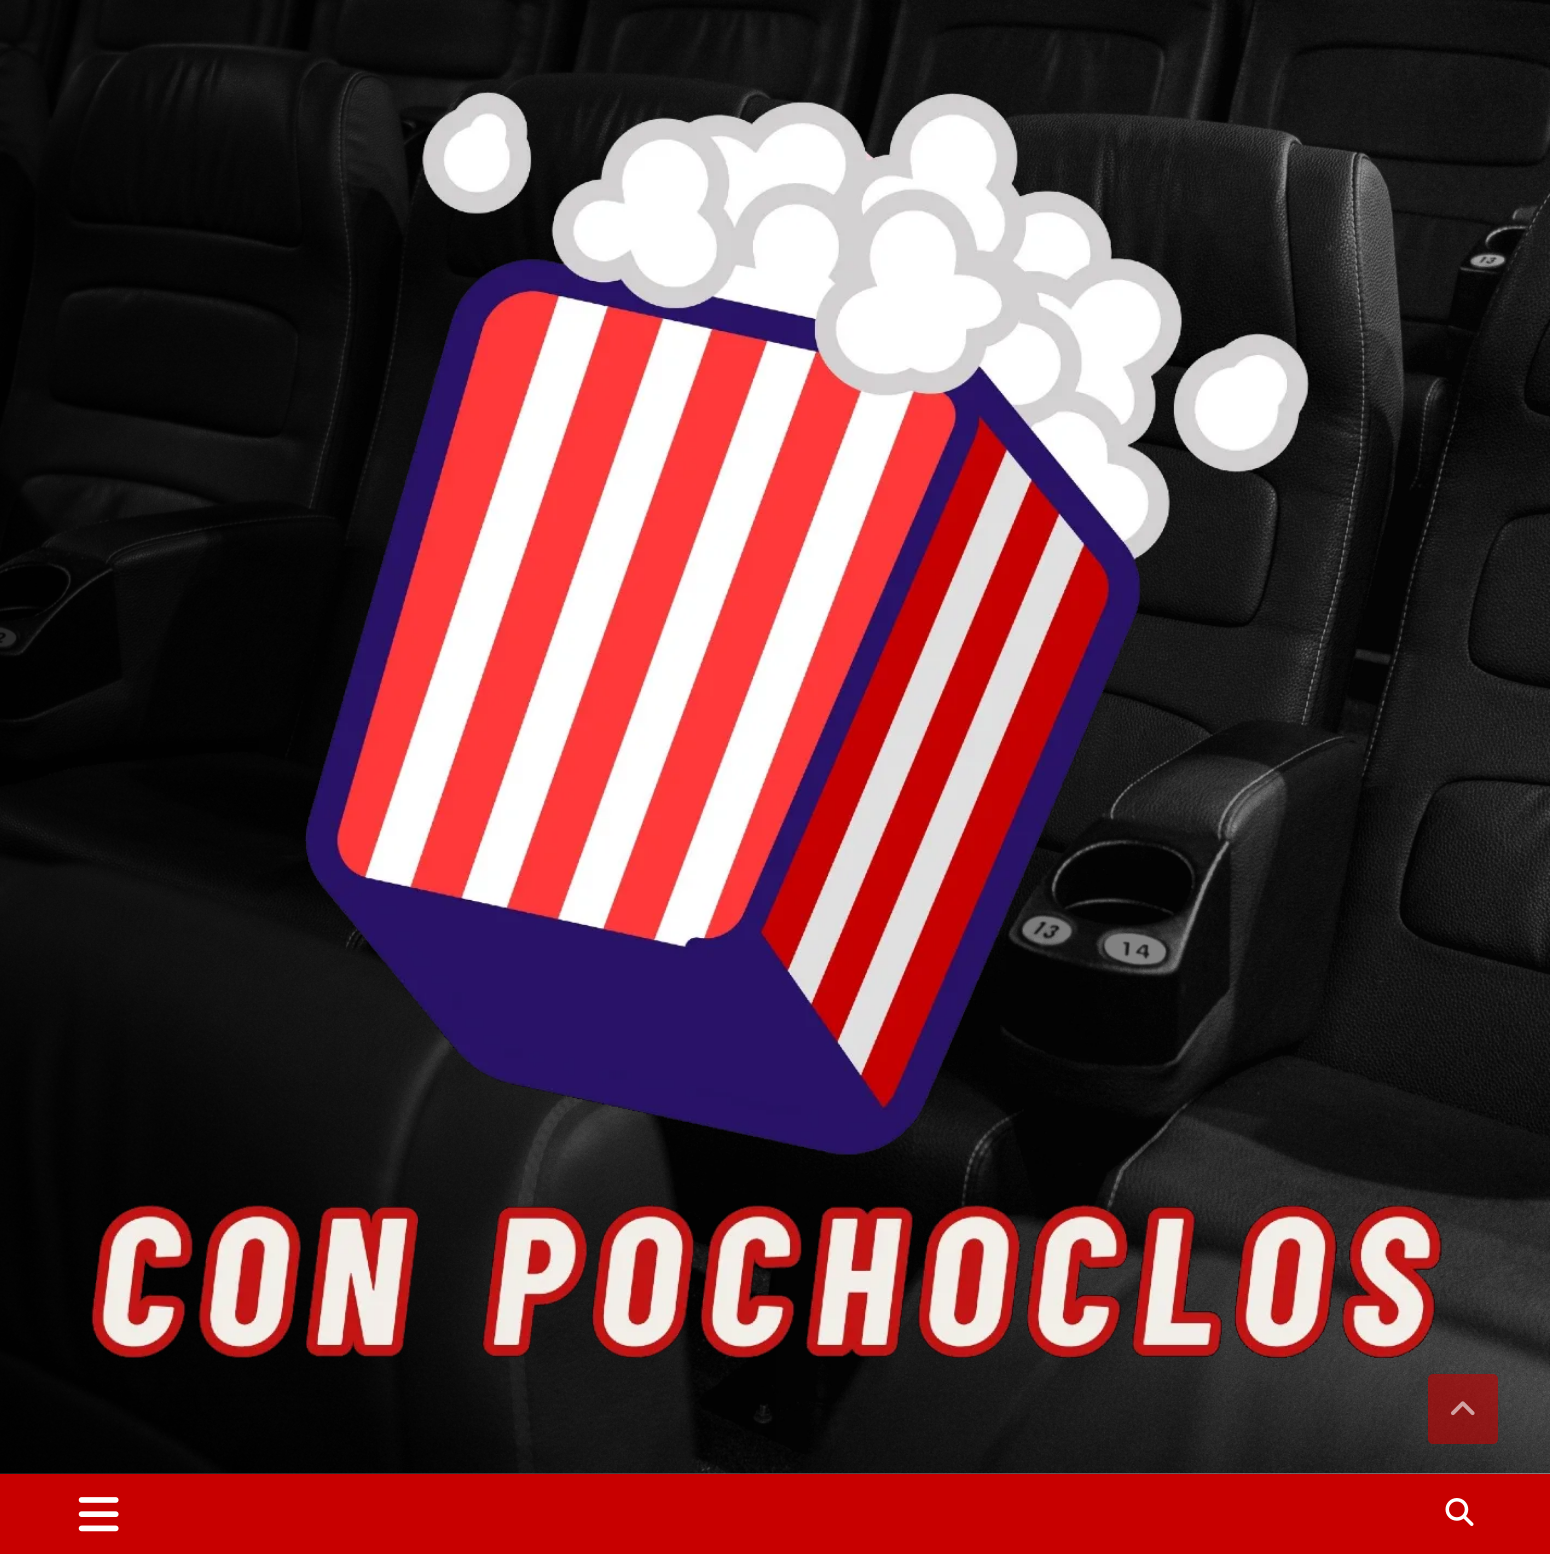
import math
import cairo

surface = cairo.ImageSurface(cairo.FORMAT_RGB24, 1550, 1565)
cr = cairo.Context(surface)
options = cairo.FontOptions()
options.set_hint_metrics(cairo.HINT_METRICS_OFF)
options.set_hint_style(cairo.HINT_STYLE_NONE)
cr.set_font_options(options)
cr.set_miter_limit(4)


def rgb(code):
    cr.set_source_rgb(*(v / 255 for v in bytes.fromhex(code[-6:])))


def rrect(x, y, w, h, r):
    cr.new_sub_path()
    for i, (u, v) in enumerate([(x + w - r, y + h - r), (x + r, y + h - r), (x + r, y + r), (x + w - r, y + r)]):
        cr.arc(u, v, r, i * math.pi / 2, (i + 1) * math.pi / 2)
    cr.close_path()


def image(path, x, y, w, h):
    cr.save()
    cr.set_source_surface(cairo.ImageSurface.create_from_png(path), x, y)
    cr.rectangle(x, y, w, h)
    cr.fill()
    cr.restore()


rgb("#ffffff")
cr.paint()
image("img/1.png", 0, 0, 1550, 1474)
gradient = cairo.LinearGradient(0, 737, 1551, 737)
gradient.add_color_stop_rgba(0, 0, 0, 0, 0.8)
gradient.add_color_stop_rgba(1, 0, 0, 0, 0.2)
cr.set_source(gradient)
cr.rectangle(0, 0, 1550, 1474)
cr.fill()
image("img/2.png", 91, 91, 1351, 1267)
rgb("#c80000")
cr.rectangle(0, 1474, 1550, 80)
cr.fill()
image("img/3.png", 78, 1497, 41, 35)
image("img/4.png", 1445, 1498, 29, 28)
cr.set_source_rgba(0.784, 0, 0, 0.6)
rrect(1428, 1374, 70, 70, 5)
cr.fill()
image("img/5.png", 1451, 1401, 24, 15)
surface.write_to_png("page.png")
